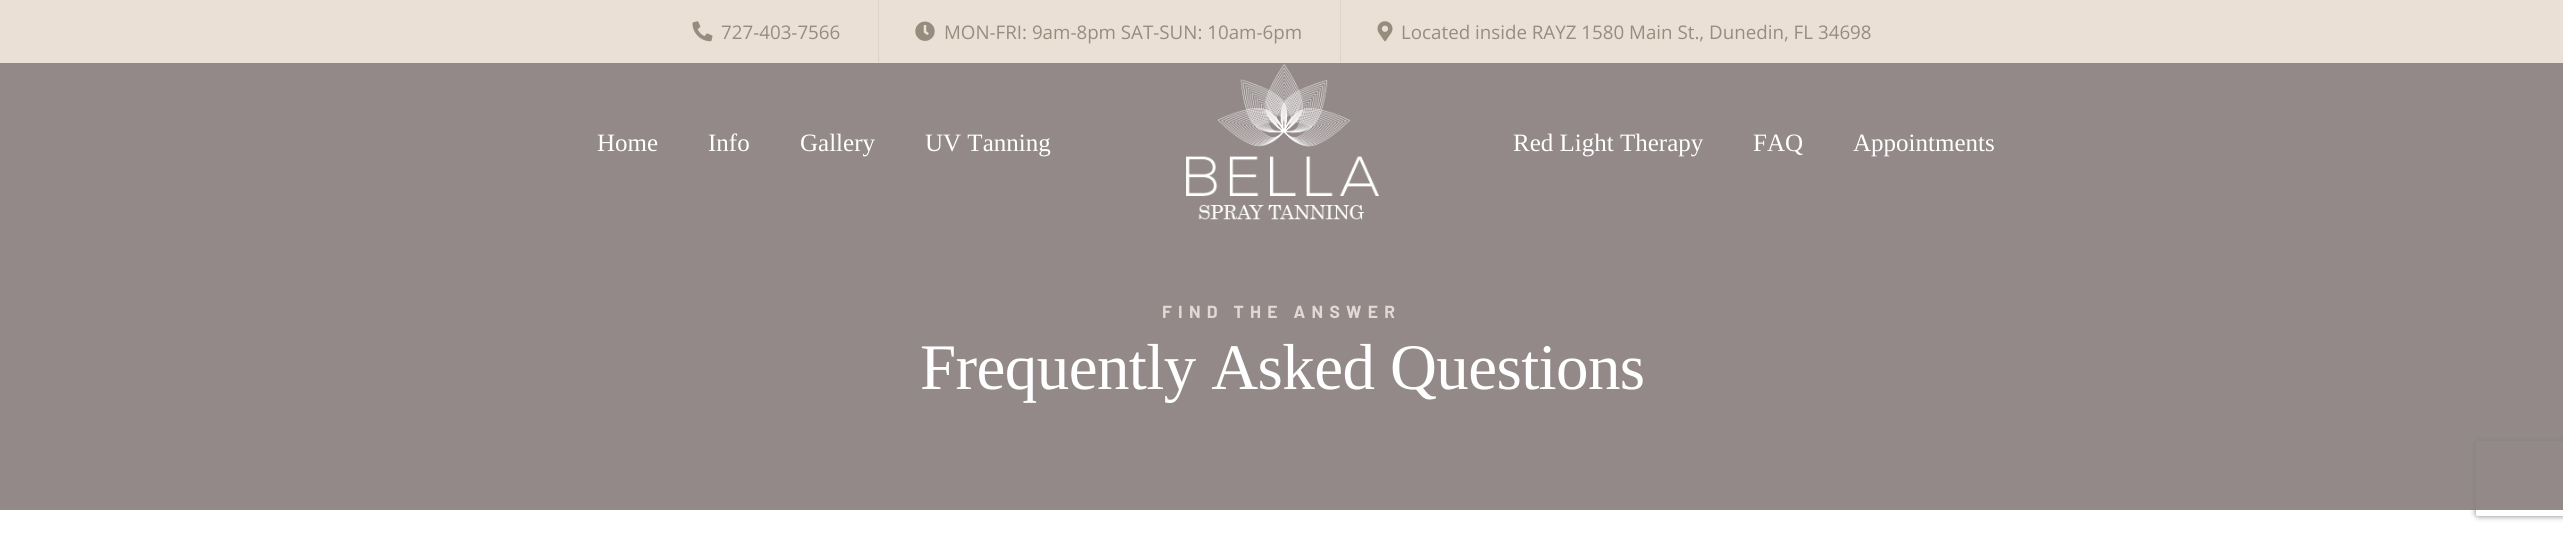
import math
import cairo

surface = cairo.ImageSurface(cairo.FORMAT_RGB24, 2563, 533)
cr = cairo.Context(surface)
options = cairo.FontOptions()
options.set_hint_metrics(cairo.HINT_METRICS_OFF)
options.set_hint_style(cairo.HINT_STYLE_NONE)
cr.set_font_options(options)
cr.set_miter_limit(4)


def rgb(code):
    cr.set_source_rgb(*(v / 255 for v in bytes.fromhex(code[-6:])))


def tracked(x, y, s, letter, word):
    cr.move_to(x, y)
    for ch in s:
        cr.show_text(ch)
        cr.rel_move_to(letter + word * (ch == ' '), 0)


def rrect(x, y, w, h, r):
    cr.new_sub_path()
    for i, (u, v) in enumerate([(x + w - r, y + h - r), (x + r, y + h - r), (x + r, y + r), (x + w - r, y + r)]):
        cr.arc(u, v, r, i * math.pi / 2, (i + 1) * math.pi / 2)
    cr.close_path()


def soft_shadow(x, y, w, h, r, blur, alpha):
    cr.push_group_with_content(cairo.CONTENT_ALPHA)
    cr.set_operator(cairo.OPERATOR_SOURCE)
    for i in range(15, -16, -2):
        e = blur * i / 6
        if min(w, h) + 2 * e > 0:
            cr.set_source_rgba(0, 0, 0, alpha * math.erfc((i - 1) / 8.5) / 2)
            rrect(x - e, y - e, w + 2 * e, h + 2 * e, max(0, min(r + e + blur * .6, min(w, h) / 2 + e)))
            cr.fill()
    cr.mask(cr.pop_group())


def image(path, x, y, w, h):
    cr.save()
    cr.set_source_surface(cairo.ImageSurface.create_from_png(path), x, y)
    cr.rectangle(x, y, w, h)
    cr.fill()
    cr.restore()


rgb("#ffffff")
cr.paint()
rgb("#eae0d5")
cr.rectangle(0, 0, 2563, 63)
cr.fill()
image("img/1.png", 692, 21, 21, 21)
rgb("#dfd3c7")
cr.rectangle(878, 0, 1, 63)
cr.fill()
image("img/2.png", 915, 21, 20, 20)
cr.rectangle(1340, 0, 1, 63)
cr.fill()
image("img/3.png", 1377, 21, 16, 21)
rgb("#938989")
cr.rectangle(0, 63, 2563, 447)
cr.fill()
image("img/4.png", 1186, 64, 193, 156)
cr.save()
cr.set_fill_rule(cairo.FILL_RULE_EVEN_ODD)
cr.new_path()
cr.move_to(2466, 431)
cr.line_to(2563, 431)
cr.line_to(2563, 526)
cr.line_to(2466, 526)
cr.close_path()
cr.move_to(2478.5, 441)
cr.line_to(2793.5, 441)
cr.curve_to(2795, 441, 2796, 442, 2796, 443.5)
cr.line_to(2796, 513.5)
cr.curve_to(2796, 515, 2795, 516, 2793.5, 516)
cr.line_to(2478.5, 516)
cr.curve_to(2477, 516, 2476, 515, 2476, 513.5)
cr.line_to(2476, 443.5)
cr.curve_to(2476, 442, 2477, 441, 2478.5, 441)
cr.close_path()
cr.clip()
rgb("#808080")
soft_shadow(2476, 441, 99, 75, 2.5, 3, 1)
cr.restore()
cr.select_font_face("Open Sans")
cr.set_font_size(18.75)
rgb("#988c7e")
for x, y, s in [
    (721, 39, "727-403-7566"),
    (944, 39, "MON-FRI: 9am-8pm SAT-SUN: 10am-6pm"),
    (1401, 39, "Located inside RAYZ 1580 Main St., Dunedin, FL 34698"),
]:
    cr.move_to(x, y)
    cr.show_text(s)
cr.select_font_face("Liberation Serif")
cr.set_font_size(25)
rgb("#ffffff")
for x, y, s in [
    (597, 151, "Home"),
    (708, 151, "Info"),
    (800, 151, "Gallery"),
    (925, 151, "UV Tanning"),
    (1513, 151, "Red Light Therapy"),
    (1753, 151, "FAQ"),
    (1853, 151, "Appointments"),
]:
    cr.move_to(x, y)
    cr.show_text(s)
cr.select_font_face("Barlow", cairo.FONT_SLANT_NORMAL, cairo.FONT_WEIGHT_BOLD)
cr.set_font_size(17.5)
rgb("#e2d8d4")
tracked(1162, 318, "FIND THE ANSWER", 6.25, 0)
cr.select_font_face("Liberation Serif")
cr.set_font_size(65)
rgb("#ffffff")
tracked(920, 389, "Frequently Asked Questions", -0.6, 0)
surface.write_to_png("page.png")
